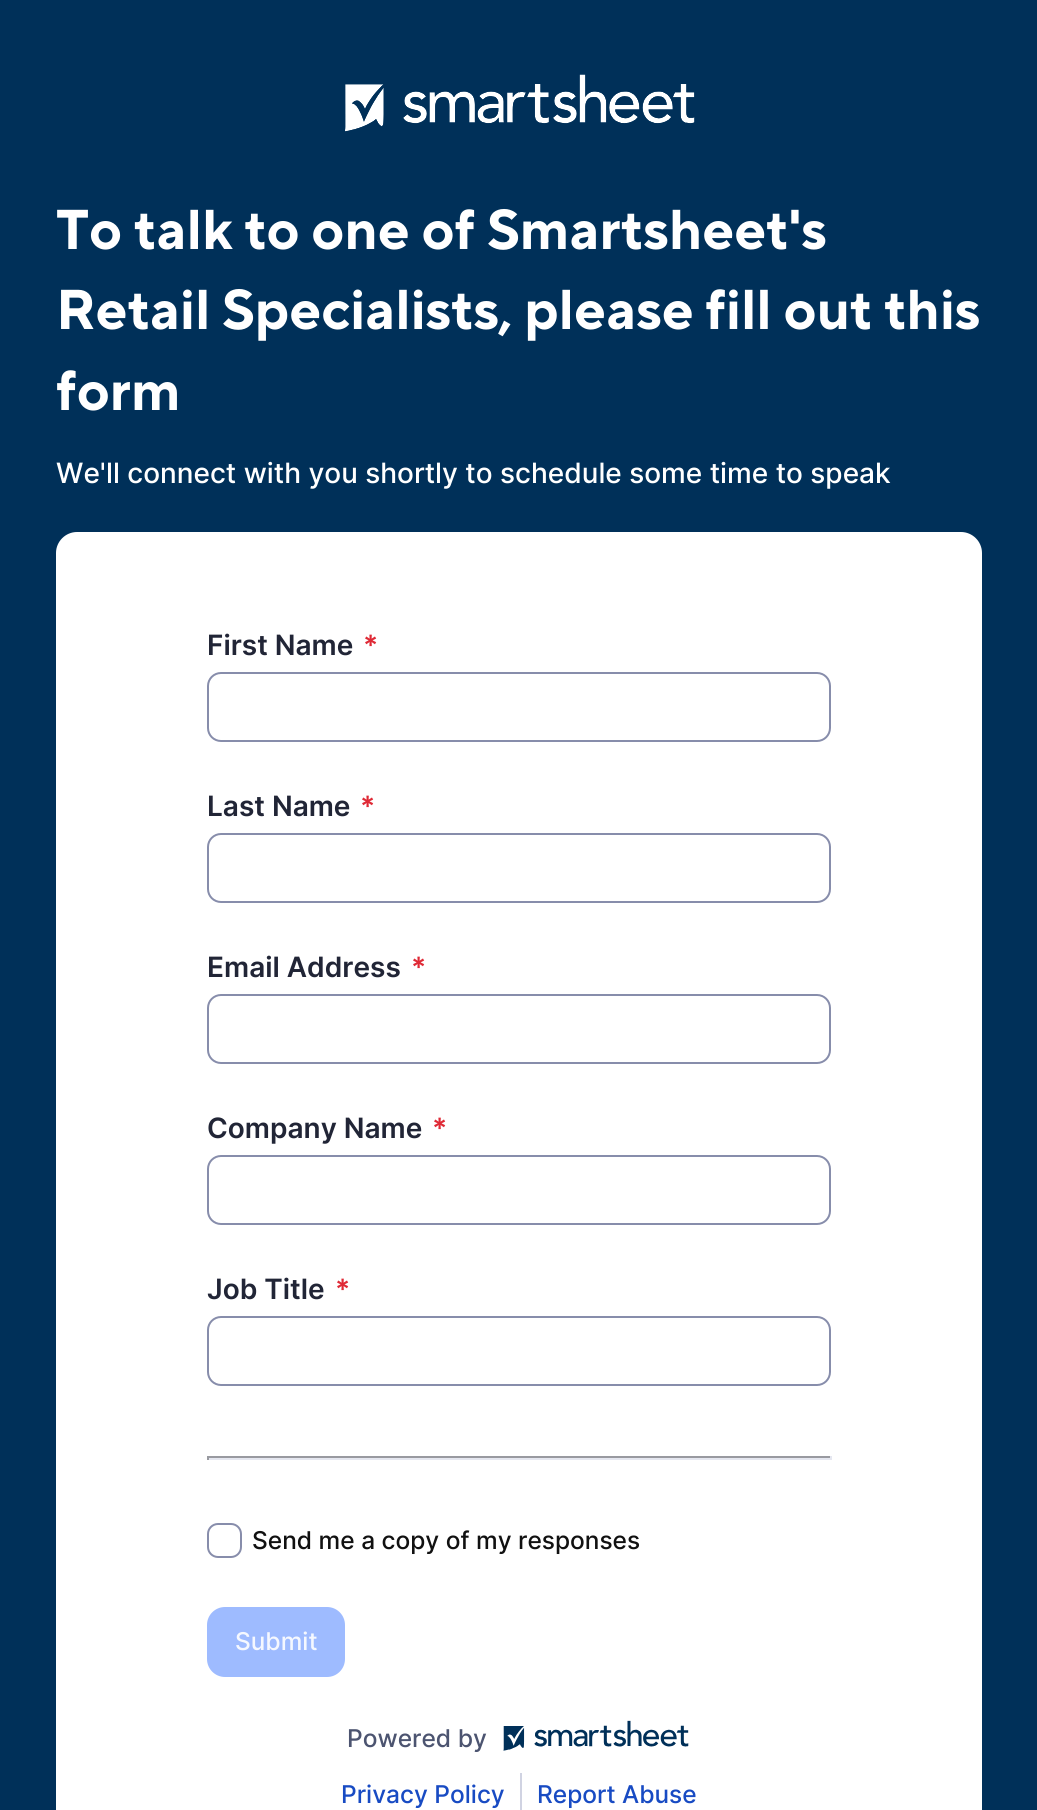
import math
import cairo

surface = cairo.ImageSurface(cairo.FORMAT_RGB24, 1037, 1810)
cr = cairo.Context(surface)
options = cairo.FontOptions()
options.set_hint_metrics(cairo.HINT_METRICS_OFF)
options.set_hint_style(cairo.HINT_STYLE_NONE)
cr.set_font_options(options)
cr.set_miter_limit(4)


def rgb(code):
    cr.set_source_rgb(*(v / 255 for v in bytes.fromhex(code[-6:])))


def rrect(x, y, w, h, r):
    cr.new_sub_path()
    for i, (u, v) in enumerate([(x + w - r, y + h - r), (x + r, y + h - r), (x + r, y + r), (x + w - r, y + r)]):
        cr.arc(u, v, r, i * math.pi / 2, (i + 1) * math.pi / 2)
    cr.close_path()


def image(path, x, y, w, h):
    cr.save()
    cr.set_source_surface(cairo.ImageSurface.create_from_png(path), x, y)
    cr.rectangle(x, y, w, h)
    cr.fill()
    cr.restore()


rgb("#003059")
cr.paint()
image("img/1.png", 345, 74, 350, 58)
rgb("#ffffff")
cr.new_path()
cr.move_to(77, 532)
cr.line_to(961, 532)
cr.curve_to(972.5, 532, 982, 541.5, 982, 553)
cr.line_to(982, 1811)
cr.line_to(56, 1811)
cr.line_to(56, 553)
cr.curve_to(56, 541.5, 65.5, 532, 77, 532)
cr.close_path()
cr.fill()
rrect(208, 673, 622, 68, 13)
rgb("#878dab")
cr.stroke()
rrect(208, 834, 622, 68, 13)
cr.stroke()
rrect(208, 995, 622, 68, 13)
cr.stroke()
rrect(208, 1156, 622, 68, 13)
cr.stroke()
rrect(208, 1317, 622, 68, 13)
cr.stroke()
for x, y, w, h, color in [
    (207, 1456, 624, 2, "#999aa0"),
    (830, 1456, 2, 4, "#e5e7f0"),
    (207, 1458, 624, 2, "#e5e7f0"),
    (207, 1456, 2, 4, "#999aa0"),
]:
    rgb(color)
    cr.rectangle(x, y, w, h)
    cr.fill()
rrect(208, 1524, 33, 33, 10)
rgb("#878dab")
cr.stroke()
rgb("#9ebbff")
rrect(207, 1607, 138, 70, 18)
cr.fill()
image("img/2.png", 503, 1720, 186, 31)
rgb("#d0d3e2")
cr.rectangle(520, 1773, 2, 37)
cr.fill()
cr.select_font_face("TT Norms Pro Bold", cairo.FONT_SLANT_NORMAL, cairo.FONT_WEIGHT_BOLD)
cr.set_font_size(56)
rgb("#ffffff")
for x, y, s in [
    (56, 249, "To talk to one of Smartsheet's"),
    (56, 329, "Retail Specialists, please fill out this"),
    (56, 410, "form"),
]:
    cr.move_to(x, y)
    cr.show_text(s)
cr.select_font_face("Inter Medium")
cr.set_font_size(28)
cr.move_to(56, 483)
cr.show_text("We'll connect with you shortly to schedule some time to speak")
cr.select_font_face("Inter SemiBold")
rgb("#212536")
cr.move_to(207, 655)
cr.show_text("First Name")
rgb("#df2a36")
cr.move_to(363, 655)
cr.show_text("*")
rgb("#212536")
cr.move_to(207, 816)
cr.show_text("Last Name")
rgb("#df2a36")
cr.move_to(360, 816)
cr.show_text("*")
rgb("#212536")
cr.move_to(207, 977)
cr.show_text("Email Address")
rgb("#df2a36")
cr.move_to(411, 977)
cr.show_text("*")
rgb("#212536")
cr.move_to(207, 1138)
cr.show_text("Company Name")
rgb("#df2a36")
cr.move_to(432, 1138)
cr.show_text("*")
rgb("#212536")
cr.move_to(207, 1299)
cr.show_text("Job Title")
rgb("#df2a36")
cr.move_to(335, 1299)
cr.show_text("*")
cr.select_font_face("Inter Medium")
cr.set_font_size(24.5)
rgb("#111111")
cr.move_to(252, 1549)
cr.show_text("Send me a copy of my responses")
rgb("#f5f8ff")
cr.move_to(235, 1650)
cr.show_text("Submit")
rgb("#4c5470")
cr.move_to(347, 1747)
cr.show_text("Powered by")
rgb("#184bc3")
cr.move_to(341, 1803)
cr.show_text("Privacy Policy")
cr.move_to(537, 1803)
cr.show_text("Report Abuse")
surface.write_to_png("page.png")
